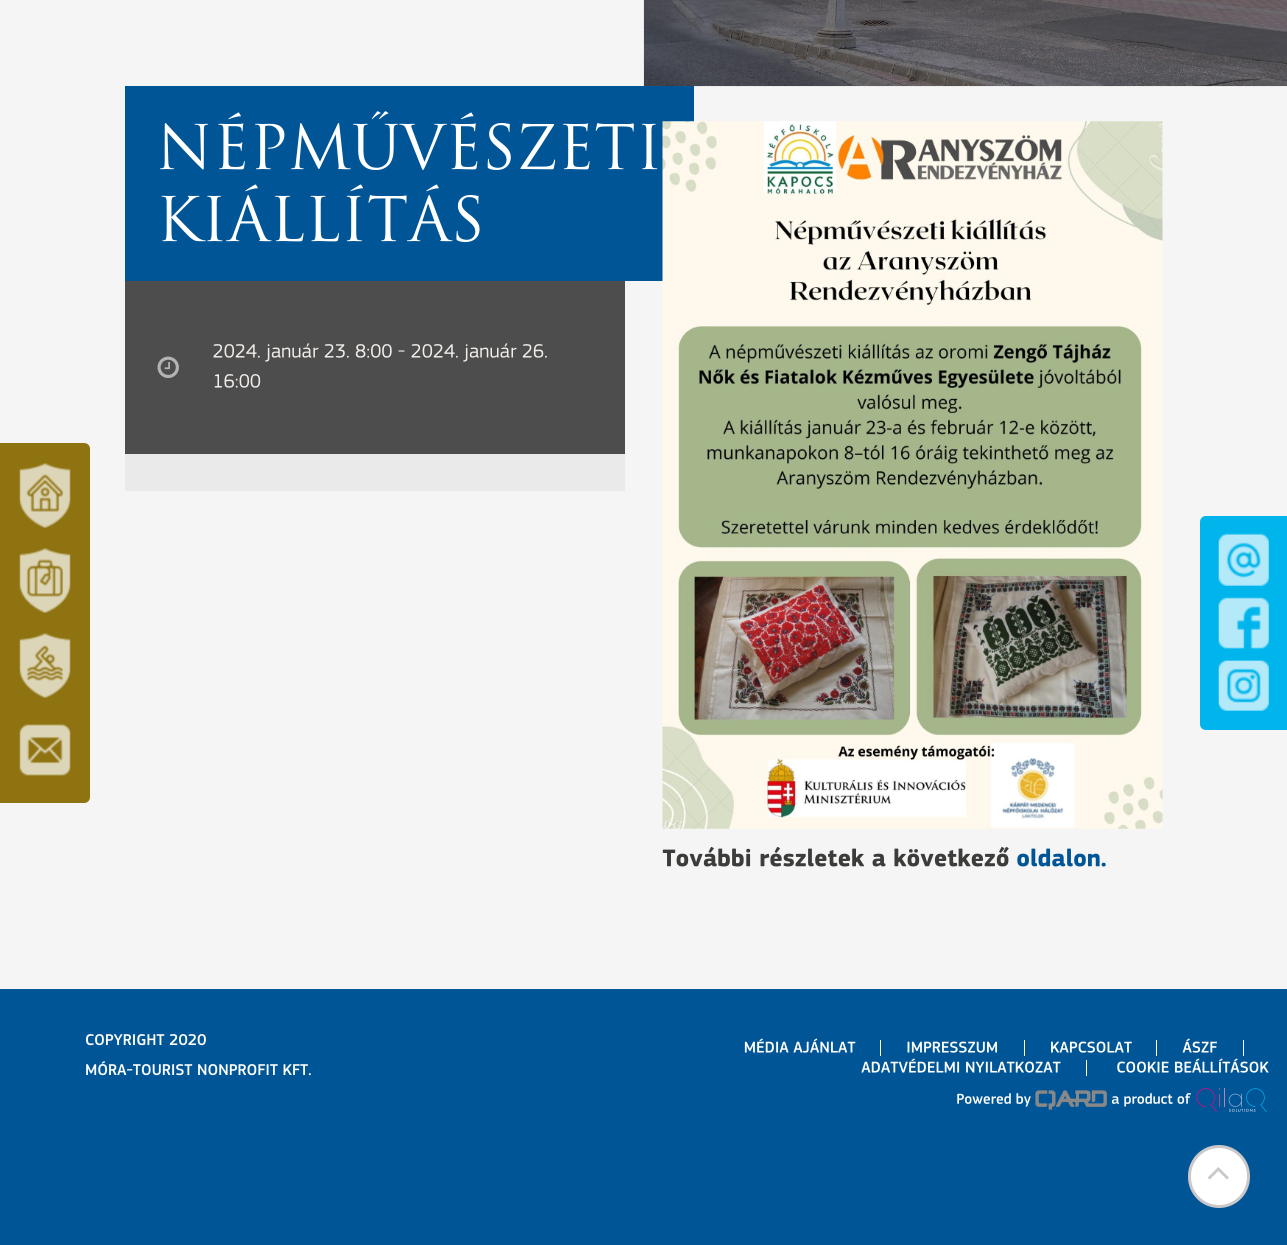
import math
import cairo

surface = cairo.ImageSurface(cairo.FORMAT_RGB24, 1287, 1245)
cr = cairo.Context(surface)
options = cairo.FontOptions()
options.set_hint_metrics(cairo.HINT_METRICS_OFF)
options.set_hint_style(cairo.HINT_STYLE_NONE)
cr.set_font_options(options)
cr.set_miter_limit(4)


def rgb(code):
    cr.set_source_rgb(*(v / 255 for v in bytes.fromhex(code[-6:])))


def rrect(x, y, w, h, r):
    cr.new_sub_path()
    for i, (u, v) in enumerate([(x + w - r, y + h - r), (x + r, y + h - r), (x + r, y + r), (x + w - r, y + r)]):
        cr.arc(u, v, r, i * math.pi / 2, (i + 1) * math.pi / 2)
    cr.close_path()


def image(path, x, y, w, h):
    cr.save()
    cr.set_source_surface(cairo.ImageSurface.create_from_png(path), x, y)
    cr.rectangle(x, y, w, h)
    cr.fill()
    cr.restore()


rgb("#f5f5f5")
cr.paint()
image("img/1.png", 643, 0, 644, 87)
rgb("#005596")
cr.rectangle(125, 86, 569, 195)
cr.fill()
rgb("#4d4d4d")
cr.rectangle(125, 281, 500, 173)
cr.fill()
image("img/2.png", 213, 343, 334, 19)
image("img/3.png", 157, 356, 22, 22)
image("img/4.png", 214, 374, 47, 14)
rgb("#eaeaea")
cr.rectangle(125, 454, 500, 37)
cr.fill()
image("img/5.png", 662, 121, 501, 708)
image("img/6.png", 662, 846, 347, 21)
image("img/7.png", 1017, 848, 89, 19)
rgb("#8e7310")
cr.new_path()
cr.move_to(0, 443)
cr.line_to(84, 443)
cr.curve_to(87.5, 443, 90, 445.5, 90, 449)
cr.line_to(90, 797)
cr.curve_to(90, 800.5, 87.5, 803, 84, 803)
cr.line_to(0, 803)
cr.close_path()
cr.fill()
image("img/8.png", 19, 463, 52, 65)
image("img/9.png", 19, 548, 52, 65)
image("img/10.png", 19, 633, 52, 65)
image("img/11.png", 19, 724, 52, 52)
rgb("#00b5ec")
cr.new_path()
cr.move_to(1206, 516)
cr.line_to(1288, 516)
cr.line_to(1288, 730)
cr.line_to(1206, 730)
cr.curve_to(1202.5, 730, 1200, 727.5, 1200, 724)
cr.line_to(1200, 522)
cr.curve_to(1200, 518.5, 1202.5, 516, 1206, 516)
cr.close_path()
cr.fill()
image("img/12.png", 1218, 533, 51, 53)
image("img/13.png", 1218, 597, 51, 52)
image("img/14.png", 1218, 660, 51, 51)
rgb("#005596")
cr.rectangle(0, 989, 1287, 256)
cr.fill()
image("img/15.png", 86, 1034, 120, 12)
image("img/16.png", 86, 1061, 225, 15)
image("img/17.png", 744, 1038, 112, 15)
rgb("#ffffff")
cr.rectangle(880, 1040, 1, 16)
cr.fill()
image("img/18.png", 907, 1041, 91, 12)
cr.rectangle(1024, 1040, 1, 16)
cr.fill()
image("img/19.png", 1051, 1041, 81, 12)
cr.rectangle(1156, 1040, 1, 16)
cr.fill()
image("img/20.png", 1182, 1038, 35, 15)
cr.rectangle(1243, 1040, 1, 16)
cr.fill()
image("img/21.png", 861, 1058, 200, 15)
cr.rectangle(1086, 1060, 1, 16)
cr.fill()
image("img/22.png", 1117, 1058, 152, 15)
image("img/23.png", 957, 1093, 74, 14)
image("img/24.png", 1035, 1090, 72, 20)
image("img/25.png", 1111, 1093, 80, 14)
image("img/26.png", 1196, 1088, 71, 24)
rrect(1189.5, 1146.5, 59, 60, 29.5)
cr.fill_preserve()
rgb("#cac8c8")
cr.set_line_width(3)
cr.stroke()
image("img/27.png", 1208, 1167, 21, 13)
cr.select_font_face("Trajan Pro")
cr.set_font_size(60)
rgb("#ffffff")
cr.move_to(156, 169)
cr.show_text("NÉPMŰVÉSZETI")
cr.move_to(156, 241)
cr.show_text("KIÁLLÍTÁS")
surface.write_to_png("page.png")
